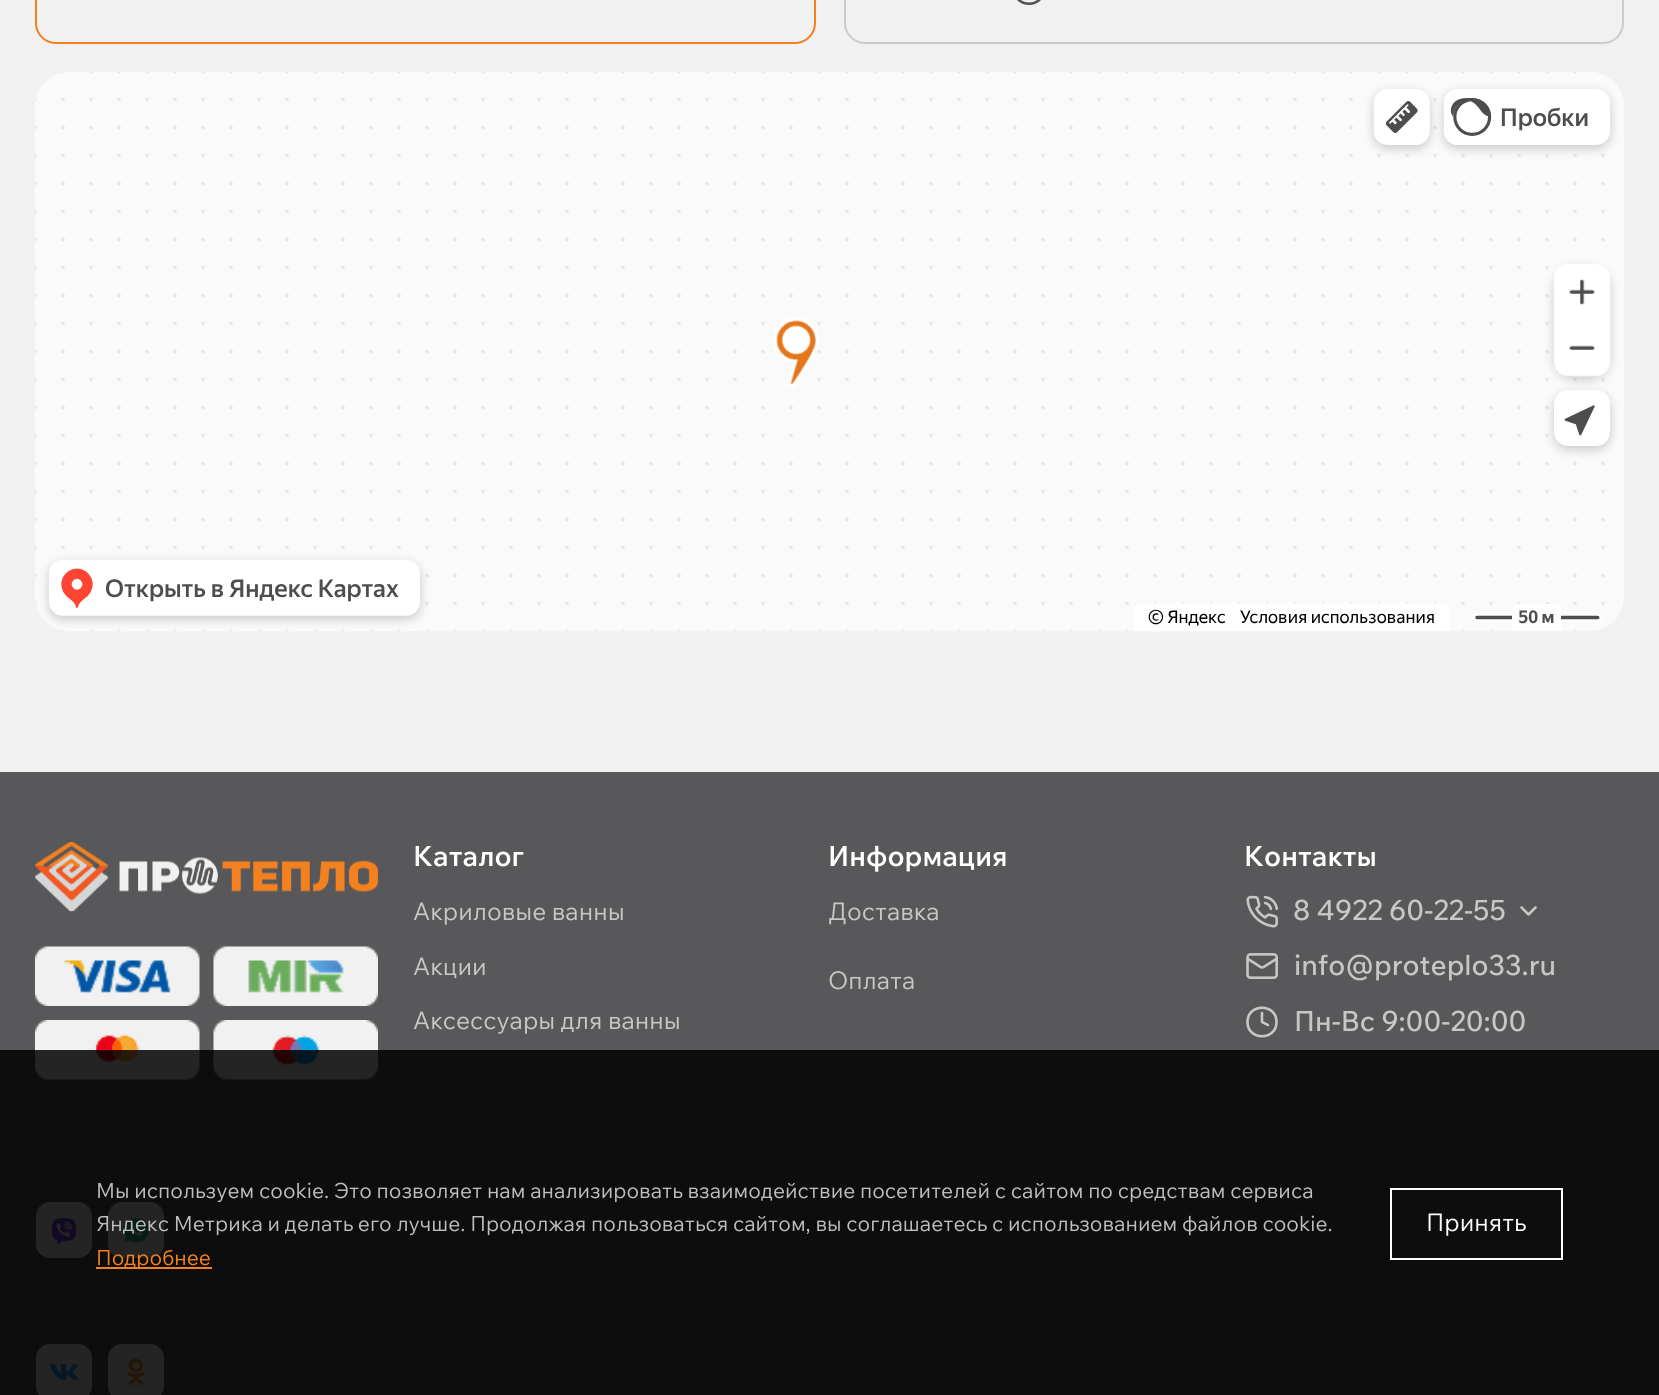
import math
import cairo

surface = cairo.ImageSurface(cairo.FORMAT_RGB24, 1659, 1395)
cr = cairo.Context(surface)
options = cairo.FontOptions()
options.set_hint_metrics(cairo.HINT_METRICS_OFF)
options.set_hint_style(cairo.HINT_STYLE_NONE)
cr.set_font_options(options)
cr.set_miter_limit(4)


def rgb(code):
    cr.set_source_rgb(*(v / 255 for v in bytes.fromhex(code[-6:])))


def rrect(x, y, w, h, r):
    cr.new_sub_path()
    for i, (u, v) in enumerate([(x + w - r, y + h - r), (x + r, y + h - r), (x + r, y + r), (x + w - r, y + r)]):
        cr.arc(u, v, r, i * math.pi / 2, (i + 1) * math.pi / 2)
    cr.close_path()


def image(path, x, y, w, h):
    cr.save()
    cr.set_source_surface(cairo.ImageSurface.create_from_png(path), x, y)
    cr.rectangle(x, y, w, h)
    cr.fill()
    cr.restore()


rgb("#f1f1f1")
cr.paint()
rrect(36, -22, 779, 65, 20)
rgb("#f48120")
cr.stroke()
rrect(845, -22, 778, 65, 20)
rgb("#cccccc")
cr.stroke()
cr.new_path()
cr.move_to(1029, -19.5)
cr.line_to(1029, -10.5)
cr.line_to(1035, -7.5)
cr.move_to(1043.5, -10.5)
cr.curve_to(1043.5, 8.5, 1014.5, 8.5, 1014.5, -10.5)
cr.curve_to(1014.5, -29.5, 1043.5, -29.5, 1043.5, -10.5)
cr.close_path()
rgb("#545454")
cr.set_line_width(2.6)
cr.set_line_cap(cairo.LINE_CAP_ROUND)
cr.set_line_join(cairo.LINE_JOIN_ROUND)
cr.stroke()
image("img/1.png", 35, 72, 1589, 560)
rgb("#58585a")
cr.rectangle(0, 772, 1659, 623)
cr.fill()
image("img/2.png", 35, 842, 343, 70)
image("img/3.png", 35, 946, 165, 60)
image("img/4.png", 213, 946, 165, 60)
image("img/5.png", 35, 1020, 165, 60)
image("img/6.png", 213, 1020, 165, 60)
image("img/7.png", 36, 1202, 56, 56)
image("img/8.png", 108, 1202, 56, 56)
image("img/9.png", 36, 1344, 56, 51)
image("img/10.png", 108, 1344, 56, 51)
image("img/11.png", 1246, 895, 32, 33)
cr.new_path()
cr.move_to(1521.5, 907.5)
cr.line_to(1528.5, 914.5)
cr.line_to(1535.5, 907.5)
rgb("#c7c7c7")
cr.stroke()
image("img/12.png", 1246, 953, 32, 26)
cr.new_path()
cr.move_to(1262, 1013)
cr.line_to(1262, 1022)
cr.line_to(1268, 1025)
cr.move_to(1276.5, 1022)
cr.curve_to(1276.5, 1041, 1247.5, 1041, 1247.5, 1022)
cr.curve_to(1247.5, 1003, 1276.5, 1003, 1276.5, 1022)
cr.close_path()
cr.stroke()
cr.set_source_rgba(0, 0, 0, 0.85)
cr.rectangle(0, 1050, 1659, 345)
cr.fill()
rgb("#f48120")
cr.rectangle(96, 1267, 116, 2)
cr.fill()
cr.rectangle(1391, 1189, 171, 70)
rgb("#ffffff")
cr.set_line_width(2)
cr.set_line_cap(cairo.LINE_CAP_BUTT)
cr.set_line_join(cairo.LINE_JOIN_MITER)
cr.stroke()
cr.select_font_face("Wix Madefor Text SemiBold")
cr.set_font_size(28)
cr.move_to(413, 866)
cr.show_text("Каталог")
cr.select_font_face("Wix Madefor Text")
cr.set_font_size(24.5)
rgb("#c7c7c7")
for x, y, s in [
    (413, 920, "Акриловые ванны"),
    (413, 975, "Акции"),
    (413, 1029, "Аксессуары для ванны"),
]:
    cr.move_to(x, y)
    cr.show_text(s)
cr.select_font_face("Wix Madefor Text SemiBold")
cr.set_font_size(28)
rgb("#ffffff")
cr.move_to(828, 866)
cr.show_text("Информация")
cr.select_font_face("Wix Madefor Text")
cr.set_font_size(24.5)
rgb("#c7c7c7")
cr.move_to(828, 920)
cr.show_text("Доставка")
cr.move_to(828, 989)
cr.show_text("Оплата")
cr.select_font_face("Wix Madefor Text SemiBold")
cr.set_font_size(28)
rgb("#ffffff")
cr.move_to(1244, 866)
cr.show_text("Контакты")
cr.select_font_face("Wix Madefor Text Medium")
rgb("#c7c7c7")
for x, y, s in [
    (1293, 920, "8 4922 60-22-55"),
    (1294, 975, "info@proteplo33.ru"),
    (1294, 1031, "Пн-Вс 9:00-20:00"),
]:
    cr.move_to(x, y)
    cr.show_text(s)
cr.select_font_face("Wix Madefor Text")
cr.set_font_size(21)
rgb("#bebebe")
cr.move_to(96, 1198)
cr.show_text("Мы используем cookie. Это позволяет нам анализировать взаимодействие посетителей с сайтом по средствам сервиса")
cr.move_to(96, 1231)
cr.show_text("Яндекс Метрика и делать его лучше. Продолжая пользоваться сайтом, вы соглашаетесь с использованием файлов cookie.")
rgb("#f48120")
cr.move_to(96, 1265)
cr.show_text("Подробнее")
cr.set_font_size(24.5)
rgb("#ffffff")
cr.move_to(1426, 1231)
cr.show_text("Принять")
surface.write_to_png("page.png")
